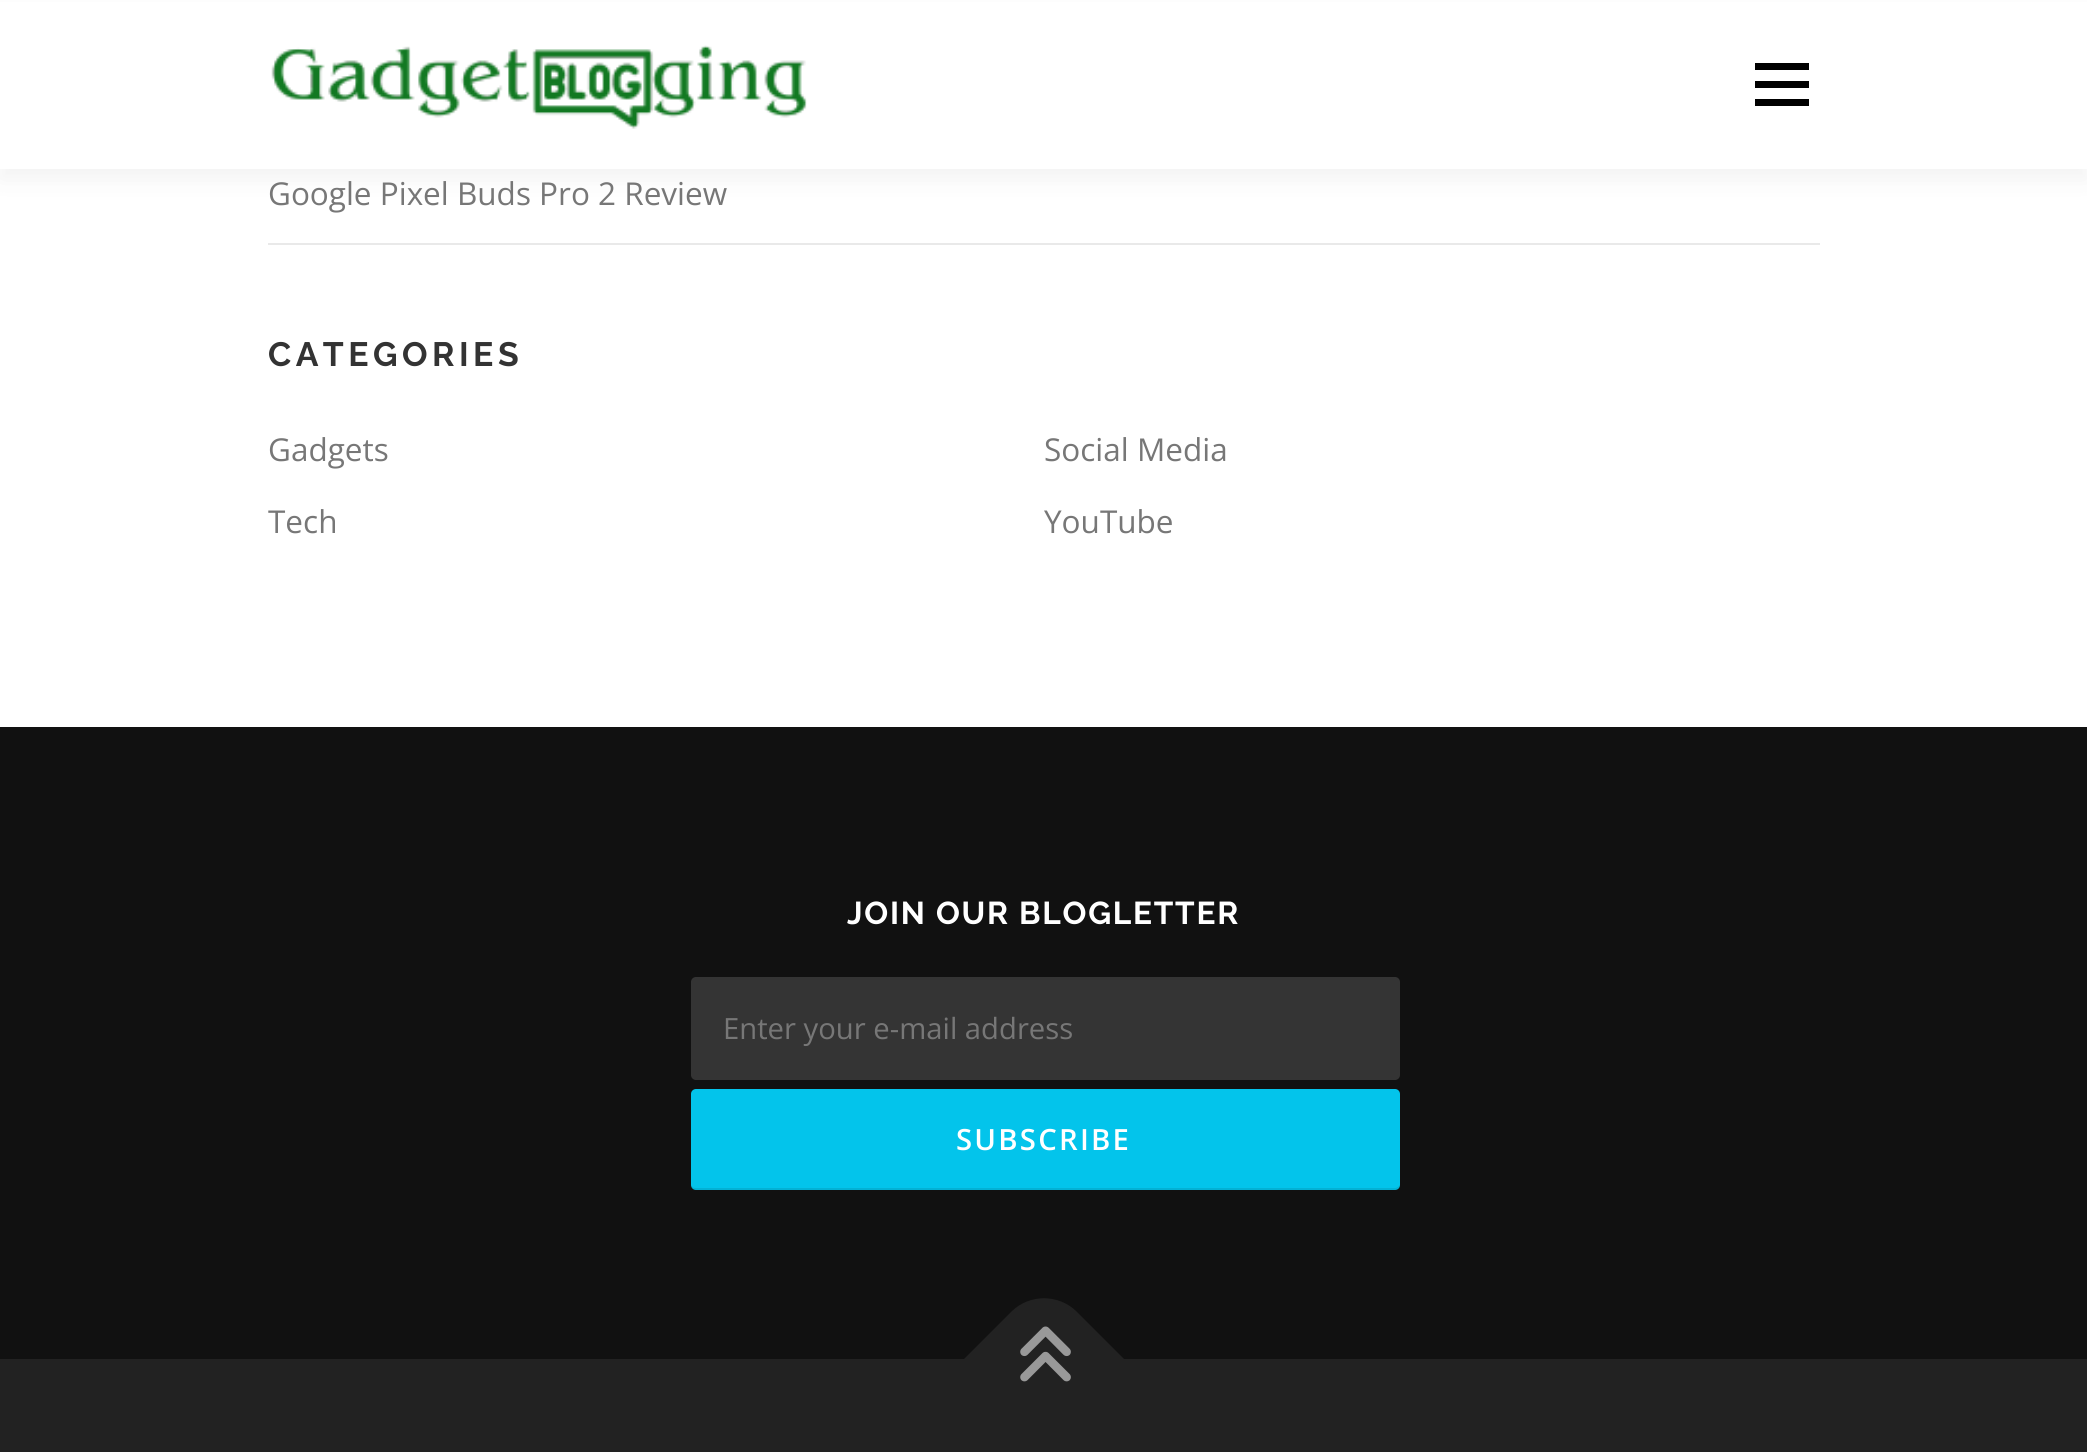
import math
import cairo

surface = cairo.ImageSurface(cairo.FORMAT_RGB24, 2087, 1452)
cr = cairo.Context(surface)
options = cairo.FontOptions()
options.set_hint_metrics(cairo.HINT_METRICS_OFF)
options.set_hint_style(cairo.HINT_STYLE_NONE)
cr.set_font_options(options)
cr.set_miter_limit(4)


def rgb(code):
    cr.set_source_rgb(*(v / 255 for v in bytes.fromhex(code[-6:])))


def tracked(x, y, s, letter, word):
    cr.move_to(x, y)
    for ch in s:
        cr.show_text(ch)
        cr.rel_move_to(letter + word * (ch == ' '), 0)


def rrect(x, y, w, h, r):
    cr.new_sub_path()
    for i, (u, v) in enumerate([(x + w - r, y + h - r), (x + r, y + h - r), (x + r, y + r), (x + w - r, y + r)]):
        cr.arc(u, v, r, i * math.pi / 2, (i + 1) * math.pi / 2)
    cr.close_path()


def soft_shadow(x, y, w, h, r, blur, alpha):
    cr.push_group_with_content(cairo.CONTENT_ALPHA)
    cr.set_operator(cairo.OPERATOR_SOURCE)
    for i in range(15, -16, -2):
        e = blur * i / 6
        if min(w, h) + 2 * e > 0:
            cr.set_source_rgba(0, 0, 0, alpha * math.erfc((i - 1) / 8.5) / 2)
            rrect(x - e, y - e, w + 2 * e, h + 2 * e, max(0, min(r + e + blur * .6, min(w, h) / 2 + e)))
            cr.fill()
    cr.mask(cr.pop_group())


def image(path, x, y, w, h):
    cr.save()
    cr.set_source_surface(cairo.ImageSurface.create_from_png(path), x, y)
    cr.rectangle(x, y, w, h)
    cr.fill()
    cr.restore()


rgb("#ffffff")
cr.paint()
rgb("#323232")
soft_shadow(0, 11, 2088, 169, 0, 11, 0.06)
rgb("#ffffff")
cr.rectangle(0, 2, 2087, 167)
cr.fill()
image("img/1.png", 271, 45, 536, 84)
for x, y, w, h, color in [
    (1755, 81, 54, 7, "#000000"),
    (1755, 63, 54, 7, "#000000"),
    (1755, 99, 54, 7, "#000000"),
    (268, 243, 1552, 2, "#e9e9e9"),
    (0, 727, 2087, 632, "#111111"),
]:
    rgb(color)
    cr.rectangle(x, y, w, h)
    cr.fill()
rgb("#343434")
rrect(691, 977, 709, 103, 5)
cr.fill()
rgb("#03c4eb")
rrect(691, 1089, 709, 101, 5)
cr.fill()
cr.set_source_rgba(0, 0, 0, 0.1)
cr.new_path()
cr.move_to(691, 1184)
cr.curve_to(691, 1187, 693, 1190, 696, 1190)
cr.line_to(1395, 1190)
cr.curve_to(1398, 1190, 1400, 1187, 1400, 1184)
cr.curve_to(1400, 1186, 1397, 1188, 1395, 1188)
cr.line_to(695, 1188)
cr.curve_to(693, 1188, 691, 1186, 691, 1184)
cr.close_path()
cr.fill()
rgb("#222222")
cr.rectangle(0, 1359, 2087, 93)
cr.fill()
cr.new_path()
cr.move_to(964, 1359)
cr.line_to(1012, 1311)
cr.curve_to(1030, 1294, 1058, 1294, 1076, 1311)
cr.line_to(1124, 1359)
cr.line_to(1044, 1438)
cr.close_path()
cr.fill()
image("img/2.png", 1020, 1326, 51, 56)
cr.select_font_face("Open Sans")
cr.set_font_size(31.5)
rgb("#777777")
cr.move_to(268, 205)
cr.show_text("Google Pixel Buds Pro 2 Review")
cr.select_font_face("Raleway", cairo.FONT_SLANT_NORMAL, cairo.FONT_WEIGHT_BOLD)
cr.set_font_size(33.75)
rgb("#333333")
tracked(268, 366, "CATEGORIES", 4.5, 0)
cr.select_font_face("Open Sans")
cr.set_font_size(31.5)
rgb("#777777")
for x, y, s in [
    (268, 461, "Gadgets"),
    (1044, 461, "Social Media"),
    (268, 533, "Tech"),
    (1044, 533, "YouTube"),
]:
    cr.move_to(x, y)
    cr.show_text(s)
cr.select_font_face("Raleway", cairo.FONT_SLANT_NORMAL, cairo.FONT_WEIGHT_BOLD)
cr.set_font_size(31.6)
rgb("#ffffff")
tracked(847, 924, "JOIN OUR BLOGLETTER", 1.75, 0)
cr.select_font_face("Open Sans")
cr.set_font_size(29.25)
rgb("#777777")
cr.move_to(723, 1039)
cr.show_text("Enter your e-mail address")
cr.select_font_face("Open Sans SemiBold")
rgb("#ffffff")
tracked(956, 1150, "SUBSCRIBE", 2.25, 0)
surface.write_to_png("page.png")
